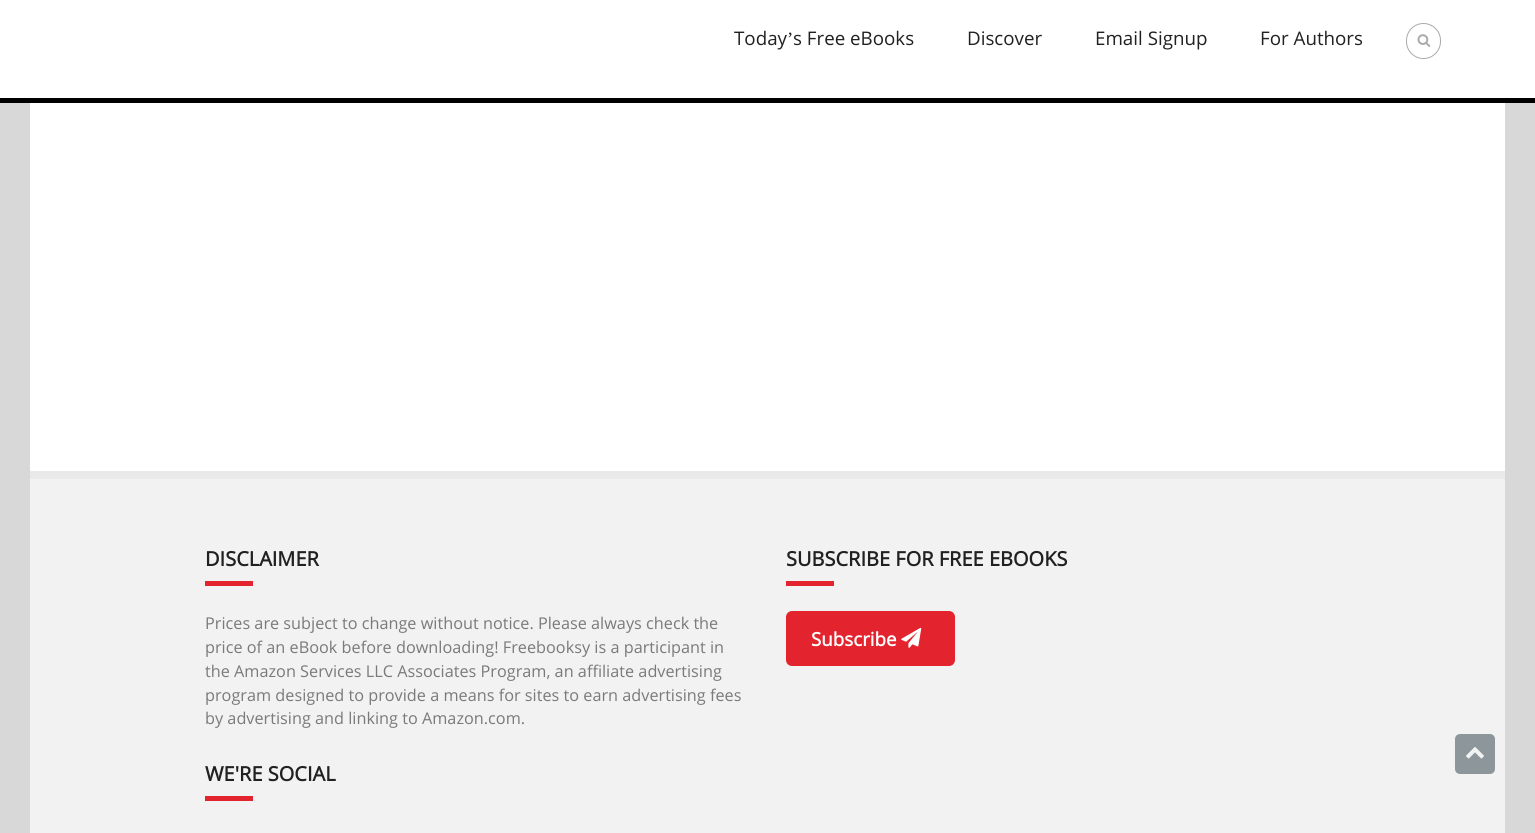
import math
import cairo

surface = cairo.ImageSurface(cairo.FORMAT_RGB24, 1535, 833)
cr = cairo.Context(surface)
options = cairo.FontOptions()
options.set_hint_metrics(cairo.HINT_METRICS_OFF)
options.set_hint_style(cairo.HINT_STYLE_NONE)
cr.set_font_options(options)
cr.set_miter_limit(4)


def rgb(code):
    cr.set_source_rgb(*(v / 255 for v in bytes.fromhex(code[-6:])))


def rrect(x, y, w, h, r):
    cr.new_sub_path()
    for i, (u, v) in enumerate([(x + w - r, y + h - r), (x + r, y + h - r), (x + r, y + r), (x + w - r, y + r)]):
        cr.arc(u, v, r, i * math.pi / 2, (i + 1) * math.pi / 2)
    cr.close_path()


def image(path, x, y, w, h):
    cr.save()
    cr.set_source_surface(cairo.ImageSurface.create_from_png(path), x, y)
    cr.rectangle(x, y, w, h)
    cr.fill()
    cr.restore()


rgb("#d8d8d8")
cr.paint()
for x, y, w, h, color in [
    (30, 103, 1475, 368, "#ffffff"),
    (0, 0, 1535, 98, "#ffffff"),
    (0, 98, 1535, 5, "#000000"),
]:
    rgb(color)
    cr.rectangle(x, y, w, h)
    cr.fill()
rrect(1406.5, 23.5, 34, 35, 17)
rgb("#aaaaaa")
cr.set_line_width(1)
cr.stroke()
image("img/1.png", 1417, 34, 14, 13)
for x, y, w, h, color in [
    (30, 479, 1475, 354, "#f2f2f2"),
    (30, 471, 1475, 8, "#e9e9e9"),
    (205, 581, 48, 5, "#e3242e"),
    (205, 796, 48, 5, "#e3242e"),
    (786, 581, 48, 5, "#e3242e"),
]:
    rgb(color)
    cr.rectangle(x, y, w, h)
    cr.fill()
rrect(786, 611, 169, 55, 6)
cr.fill()
image("img/2.png", 901, 627, 21, 21)
rgb("#8d979b")
rrect(1455, 734, 40, 40, 5)
cr.fill()
image("img/3.png", 1466, 747, 18, 12)
cr.select_font_face("Open Sans")
cr.set_font_size(18.75)
rgb("#212121")
cr.move_to(734, 45)
cr.show_text("Today")
cr.select_font_face("Liberation Serif")
cr.move_to(787, 45)
cr.show_text("’")
cr.select_font_face("Open Sans")
for x, y, s in [
    (793, 45, "s Free eBooks"),
    (967, 45, "Discover"),
    (1095, 45, "Email Signup"),
    (1260, 45, "For Authors"),
]:
    cr.move_to(x, y)
    cr.show_text(s)
cr.select_font_face("Open Sans", cairo.FONT_SLANT_NORMAL, cairo.FONT_WEIGHT_BOLD)
cr.set_font_size(20)
cr.move_to(205, 566)
cr.show_text("DISCLAIMER")
cr.select_font_face("Open Sans")
cr.set_font_size(16.25)
rgb("#7a7a7a")
for x, y, s in [
    (205, 629, "Prices are subject to change without notice. Please always check the"),
    (205, 653, "price of an eBook before downloading! Freebooksy is a participant in"),
    (205, 677, "the Amazon Services LLC Associates Program, an affiliate advertising"),
    (205, 701, "program designed to provide a means for sites to earn advertising fees"),
    (205, 724, "by advertising and linking to Amazon.com."),
]:
    cr.move_to(x, y)
    cr.show_text(s)
cr.select_font_face("Open Sans", cairo.FONT_SLANT_NORMAL, cairo.FONT_WEIGHT_BOLD)
cr.set_font_size(20)
rgb("#212121")
cr.move_to(205, 781)
cr.show_text("WE'RE SOCIAL")
cr.move_to(786, 566)
cr.show_text("SUBSCRIBE FOR FREE EBOOKS")
cr.set_font_size(18.75)
rgb("#ffffff")
cr.move_to(811, 646)
cr.show_text("Subscribe")
surface.write_to_png("page.png")
